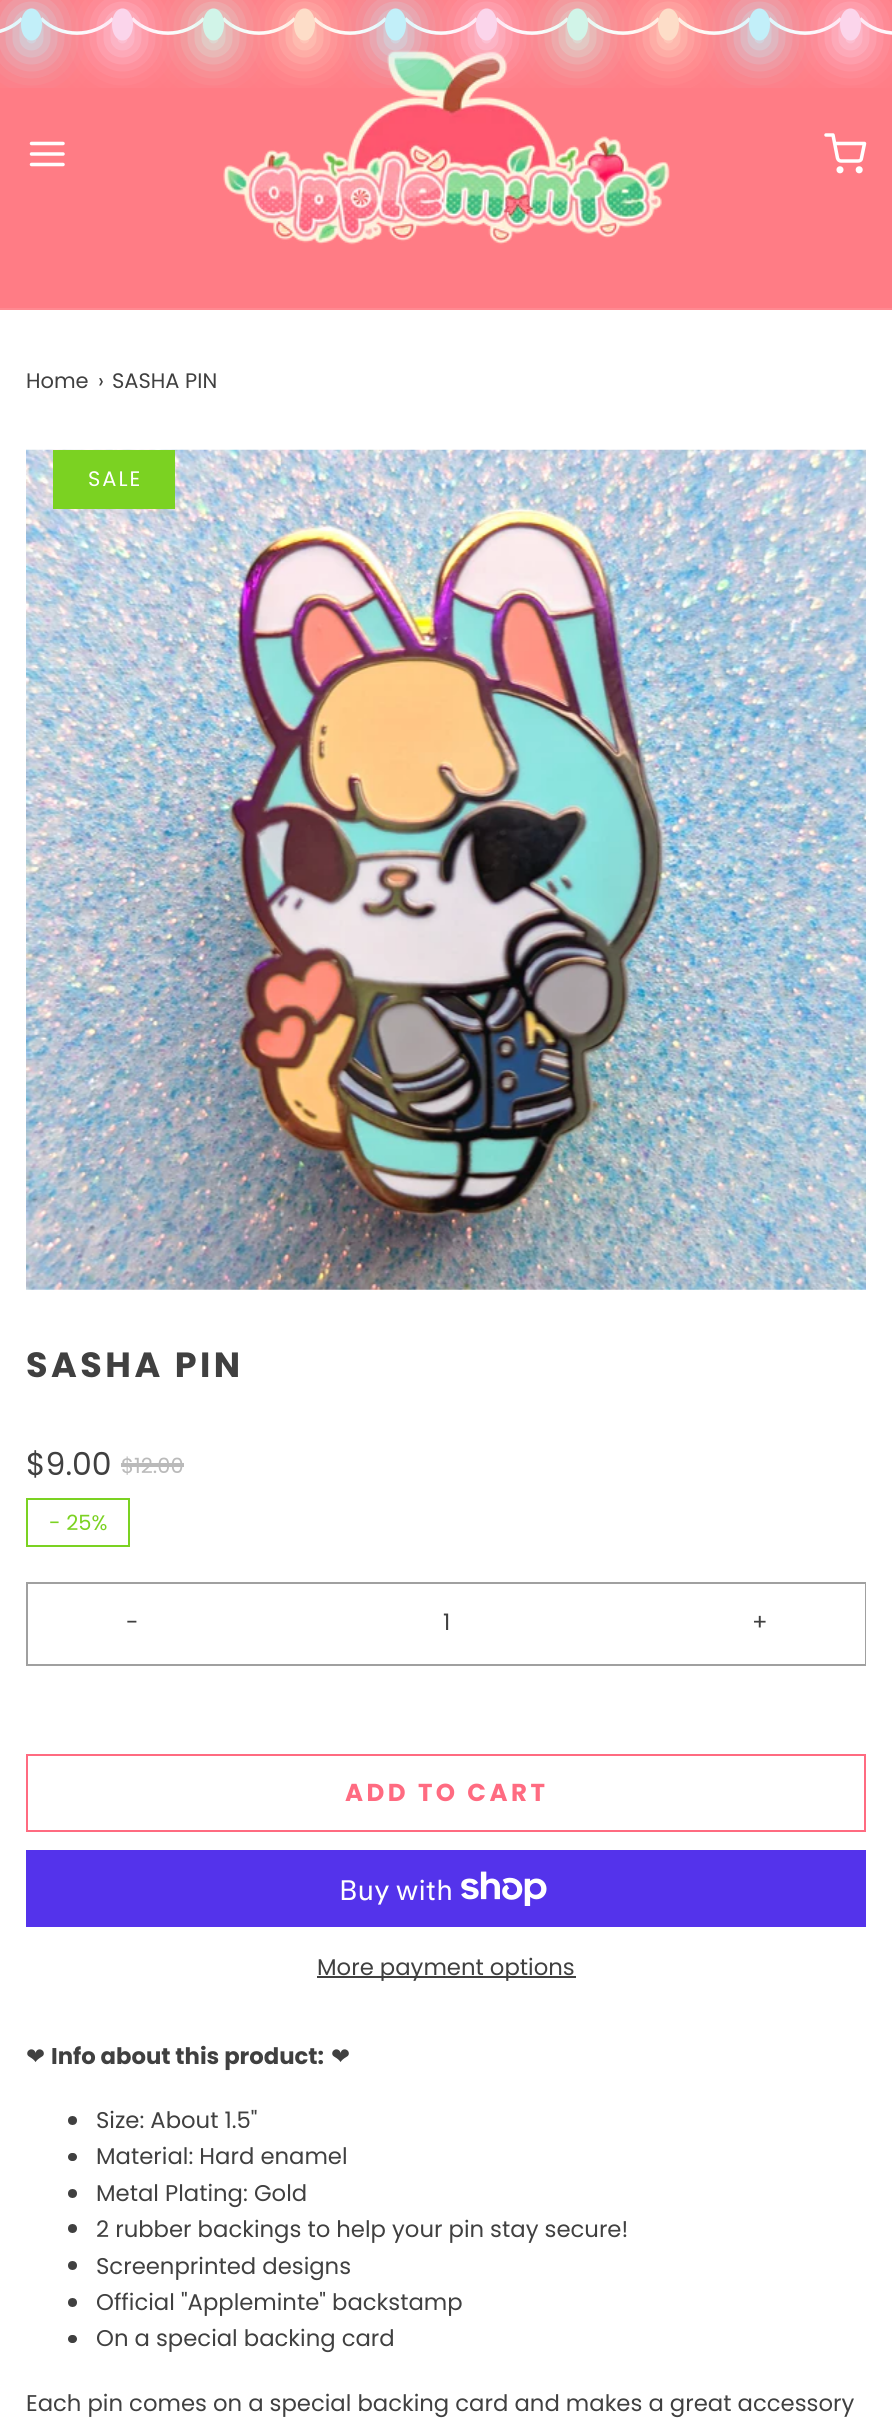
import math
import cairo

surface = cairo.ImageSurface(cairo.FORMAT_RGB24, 892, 2426)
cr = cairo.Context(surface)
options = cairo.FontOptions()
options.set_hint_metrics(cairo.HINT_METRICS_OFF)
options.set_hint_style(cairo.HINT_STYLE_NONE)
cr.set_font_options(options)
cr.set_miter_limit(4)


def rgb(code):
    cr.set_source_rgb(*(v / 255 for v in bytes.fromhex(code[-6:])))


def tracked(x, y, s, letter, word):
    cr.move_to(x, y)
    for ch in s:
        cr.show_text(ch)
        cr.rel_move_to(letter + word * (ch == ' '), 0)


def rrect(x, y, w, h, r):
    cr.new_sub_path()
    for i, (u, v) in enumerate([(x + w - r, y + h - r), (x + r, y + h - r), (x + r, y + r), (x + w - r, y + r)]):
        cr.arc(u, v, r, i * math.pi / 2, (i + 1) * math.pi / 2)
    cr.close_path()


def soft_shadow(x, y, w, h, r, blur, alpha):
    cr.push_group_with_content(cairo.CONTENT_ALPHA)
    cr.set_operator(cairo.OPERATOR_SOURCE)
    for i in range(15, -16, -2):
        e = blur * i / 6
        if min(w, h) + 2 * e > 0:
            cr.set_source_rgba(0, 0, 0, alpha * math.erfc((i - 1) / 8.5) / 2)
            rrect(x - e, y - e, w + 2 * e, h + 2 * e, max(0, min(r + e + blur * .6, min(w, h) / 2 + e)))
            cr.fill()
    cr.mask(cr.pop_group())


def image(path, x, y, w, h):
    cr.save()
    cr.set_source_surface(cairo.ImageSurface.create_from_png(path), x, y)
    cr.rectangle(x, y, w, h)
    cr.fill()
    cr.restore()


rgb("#ffffff")
cr.paint()
rgb("#ff7c85")
cr.rectangle(0, 0, 892, 308)
cr.fill()
cr.new_path()
cr.move_to(113, 18.5)
cr.curve_to(93.5, 38, 60.5, 38, 41, 18.5)
rgb("#ffffff")
cr.set_line_width(3.5)
cr.stroke()
cr.new_path()
cr.move_to(22, 18.5)
cr.curve_to(2.5, 38, -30.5, 38, -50, 18.5)
cr.stroke()
cr.save()
cr.rectangle(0, 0, 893, 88)
cr.clip()
rgb("#c2eff9")
soft_shadow(16, 12, 31, 42, 15.5, 21, 1)
cr.restore()
rgb("#c2eff9")
cr.new_path()
cr.move_to(31.5, 8.5)
cr.curve_to(37.5, 8.5, 42, 15.5, 42, 24.5)
cr.curve_to(42, 33.5, 37.5, 40.5, 31.5, 40.5)
cr.curve_to(25.5, 40.5, 21, 33.5, 21, 24.5)
cr.curve_to(21, 15.5, 25.5, 8.5, 31.5, 8.5)
cr.close_path()
cr.fill()
cr.new_path()
cr.move_to(204, 18.5)
cr.curve_to(184.5, 38, 151.5, 38, 132, 18.5)
rgb("#ffffff")
cr.stroke()
cr.save()
cr.rectangle(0, 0, 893, 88)
cr.clip()
rgb("#fbd5eb")
soft_shadow(107, 12, 31, 42, 15.5, 21, 1)
cr.restore()
rgb("#fbd5eb")
cr.new_path()
cr.move_to(122.5, 8.5)
cr.curve_to(128.5, 8.5, 133, 15.5, 133, 24.5)
cr.curve_to(133, 33.5, 128.5, 40.5, 122.5, 40.5)
cr.curve_to(116.5, 40.5, 112, 33.5, 112, 24.5)
cr.curve_to(112, 15.5, 116.5, 8.5, 122.5, 8.5)
cr.close_path()
cr.fill()
cr.new_path()
cr.move_to(295, 18.5)
cr.curve_to(275.5, 38, 242.5, 38, 223, 18.5)
rgb("#ffffff")
cr.stroke()
image("img/1.png", 223, 50, 447, 195)
cr.save()
cr.rectangle(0, 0, 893, 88)
cr.clip()
rgb("#d1f4e8")
soft_shadow(198, 12, 31, 42, 15.5, 21, 1)
cr.restore()
rgb("#d1f4e8")
cr.new_path()
cr.move_to(213.5, 8.5)
cr.curve_to(219.5, 8.5, 224, 15.5, 224, 24.5)
cr.curve_to(224, 33.5, 219.5, 40.5, 213.5, 40.5)
cr.curve_to(207.5, 40.5, 203, 33.5, 203, 24.5)
cr.curve_to(203, 15.5, 207.5, 8.5, 213.5, 8.5)
cr.close_path()
cr.fill()
cr.new_path()
cr.move_to(386, 18.5)
cr.curve_to(366.5, 38, 333.5, 38, 314, 18.5)
rgb("#ffffff")
cr.stroke()
cr.save()
cr.rectangle(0, 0, 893, 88)
cr.clip()
rgb("#fdddc8")
soft_shadow(289, 12, 31, 42, 15.5, 21, 1)
cr.restore()
rgb("#fdddc8")
cr.new_path()
cr.move_to(304.5, 8.5)
cr.curve_to(310.5, 8.5, 315, 15.5, 315, 24.5)
cr.curve_to(315, 33.5, 310.5, 40.5, 304.5, 40.5)
cr.curve_to(298.5, 40.5, 294, 33.5, 294, 24.5)
cr.curve_to(294, 15.5, 298.5, 8.5, 304.5, 8.5)
cr.close_path()
cr.fill()
cr.new_path()
cr.move_to(477, 18.5)
cr.curve_to(457.5, 38, 424.5, 38, 405, 18.5)
rgb("#ffffff")
cr.stroke()
cr.save()
cr.rectangle(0, 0, 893, 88)
cr.clip()
rgb("#c2eff9")
soft_shadow(380, 12, 31, 42, 15.5, 21, 1)
cr.restore()
rgb("#c2eff9")
cr.new_path()
cr.move_to(395.5, 8.5)
cr.curve_to(401.5, 8.5, 406, 15.5, 406, 24.5)
cr.curve_to(406, 33.5, 401.5, 40.5, 395.5, 40.5)
cr.curve_to(389.5, 40.5, 385, 33.5, 385, 24.5)
cr.curve_to(385, 15.5, 389.5, 8.5, 395.5, 8.5)
cr.close_path()
cr.fill()
cr.new_path()
cr.move_to(568, 18.5)
cr.curve_to(548.5, 38, 515.5, 38, 496, 18.5)
rgb("#ffffff")
cr.stroke()
cr.save()
cr.rectangle(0, 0, 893, 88)
cr.clip()
rgb("#fbd5eb")
soft_shadow(471, 12, 31, 42, 15.5, 21, 1)
cr.restore()
rgb("#fbd5eb")
cr.new_path()
cr.move_to(486.5, 8.5)
cr.curve_to(492.5, 8.5, 497, 15.5, 497, 24.5)
cr.curve_to(497, 33.5, 492.5, 40.5, 486.5, 40.5)
cr.curve_to(480.5, 40.5, 476, 33.5, 476, 24.5)
cr.curve_to(476, 15.5, 480.5, 8.5, 486.5, 8.5)
cr.close_path()
cr.fill()
cr.new_path()
cr.move_to(659, 18.5)
cr.curve_to(639.5, 38, 606.5, 38, 587, 18.5)
rgb("#ffffff")
cr.stroke()
cr.save()
cr.rectangle(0, 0, 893, 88)
cr.clip()
rgb("#d1f4e8")
soft_shadow(562, 12, 31, 42, 15.5, 21, 1)
cr.restore()
rgb("#d1f4e8")
cr.new_path()
cr.move_to(577.5, 8.5)
cr.curve_to(583.5, 8.5, 588, 15.5, 588, 24.5)
cr.curve_to(588, 33.5, 583.5, 40.5, 577.5, 40.5)
cr.curve_to(571.5, 40.5, 567, 33.5, 567, 24.5)
cr.curve_to(567, 15.5, 571.5, 8.5, 577.5, 8.5)
cr.close_path()
cr.fill()
cr.new_path()
cr.move_to(750, 18.5)
cr.curve_to(730.5, 38, 697.5, 38, 678, 18.5)
rgb("#ffffff")
cr.stroke()
cr.save()
cr.rectangle(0, 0, 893, 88)
cr.clip()
rgb("#fdddc8")
soft_shadow(653, 12, 31, 42, 15.5, 21, 1)
cr.restore()
rgb("#fdddc8")
cr.new_path()
cr.move_to(668.5, 8.5)
cr.curve_to(674.5, 8.5, 679, 15.5, 679, 24.5)
cr.curve_to(679, 33.5, 674.5, 40.5, 668.5, 40.5)
cr.curve_to(662.5, 40.5, 658, 33.5, 658, 24.5)
cr.curve_to(658, 15.5, 662.5, 8.5, 668.5, 8.5)
cr.close_path()
cr.fill()
cr.new_path()
cr.move_to(841, 18.5)
cr.curve_to(821.5, 38, 788.5, 38, 769, 18.5)
rgb("#ffffff")
cr.stroke()
cr.save()
cr.rectangle(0, 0, 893, 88)
cr.clip()
rgb("#c2eff9")
soft_shadow(744, 12, 31, 42, 15.5, 21, 1)
cr.restore()
rgb("#c2eff9")
cr.new_path()
cr.move_to(759.5, 8.5)
cr.curve_to(765.5, 8.5, 770, 15.5, 770, 24.5)
cr.curve_to(770, 33.5, 765.5, 40.5, 759.5, 40.5)
cr.curve_to(753.5, 40.5, 749, 33.5, 749, 24.5)
cr.curve_to(749, 15.5, 753.5, 8.5, 759.5, 8.5)
cr.close_path()
cr.fill()
cr.new_path()
cr.move_to(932, 18.5)
cr.curve_to(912.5, 38, 879.5, 38, 860, 18.5)
rgb("#ffffff")
cr.stroke()
cr.save()
cr.rectangle(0, 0, 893, 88)
cr.clip()
rgb("#fbd5eb")
soft_shadow(835, 12, 31, 42, 15.5, 21, 1)
cr.restore()
rgb("#fbd5eb")
cr.new_path()
cr.move_to(850.5, 8.5)
cr.curve_to(856.5, 8.5, 861, 15.5, 861, 24.5)
cr.curve_to(861, 33.5, 856.5, 40.5, 850.5, 40.5)
cr.curve_to(844.5, 40.5, 840, 33.5, 840, 24.5)
cr.curve_to(840, 15.5, 844.5, 8.5, 850.5, 8.5)
cr.close_path()
cr.fill()
rgb("#ff8991")
cr.rectangle(0, 308, 892, 2)
cr.fill()
cr.new_path()
cr.move_to(31.5, 154)
cr.line_to(63, 154)
cr.move_to(31.5, 143.5)
cr.line_to(63, 143.5)
cr.move_to(31.5, 164.5)
cr.line_to(63, 164.5)
rgb("#ffffff")
cr.set_line_cap(cairo.LINE_CAP_ROUND)
cr.set_line_join(cairo.LINE_JOIN_ROUND)
cr.stroke()
cr.new_path()
cr.move_to(826, 135)
cr.line_to(833, 135)
cr.line_to(837.5, 158)
cr.curve_to(838, 160, 839.5, 161, 841, 161)
cr.line_to(858, 161)
cr.curve_to(860, 161, 861.5, 160, 861.5, 158)
cr.line_to(864.5, 143.5)
cr.line_to(835, 143.5)
cr.stroke()
cr.arc(840, 169.8, 1.8, 0, 2 * math.pi)
cr.set_line_cap(cairo.LINE_CAP_BUTT)
cr.set_line_join(cairo.LINE_JOIN_MITER)
cr.stroke()
cr.arc(859.2, 169.8, 1.8, 0, 2 * math.pi)
cr.stroke()
image("img/2.png", 26, 449, 840, 841)
rgb("#7bd222")
cr.rectangle(53, 450, 122, 59)
cr.fill()
rgb("#bababa")
cr.rectangle(121, 1463, 63, 4)
cr.fill()
cr.rectangle(27, 1499, 102, 47)
rgb("#7bd222")
cr.set_line_width(2)
cr.stroke()
cr.rectangle(27, 1583, 838, 82)
rgb("#a0a0a0")
cr.stroke()
rgb("#ffffff")
cr.rectangle(864, 1584, 1, 80)
cr.fill()
cr.rectangle(27, 1755, 838, 76)
rgb("#ff6b81")
cr.stroke()
rgb("#5433eb")
cr.rectangle(26, 1850, 840, 77)
cr.fill()
image("img/3.png", 461, 1871, 86, 35)
rgb("#404040")
cr.rectangle(317, 1976, 259, 2)
cr.fill()
cr.arc(72.5, 2120.5, 4.5, 0, 2 * math.pi)
cr.fill()
rrect(68, 2153, 9, 8, 4)
cr.fill()
cr.arc(72.5, 2193.5, 4.5, 0, 2 * math.pi)
cr.fill()
cr.arc(72.5, 2228.5, 4.5, 0, 2 * math.pi)
cr.fill()
cr.arc(72.5, 2265.5, 4.5, 0, 2 * math.pi)
cr.fill()
cr.arc(72.5, 2302.5, 4.5, 0, 2 * math.pi)
cr.fill()
rrect(68, 2335, 9, 8, 4)
cr.fill()
cr.select_font_face("Poppins")
cr.set_font_size(21)
for x, y, s in [
    (26, 388, "Home"),
    (98, 388, "›"),
    (112, 388, "SASHA PIN"),
]:
    cr.move_to(x, y)
    cr.show_text(s)
rgb("#ffffff")
tracked(88, 486, "SALE", 2, 0)
cr.select_font_face("Poppins", cairo.FONT_SLANT_NORMAL, cairo.FONT_WEIGHT_BOLD)
cr.set_font_size(35)
rgb("#404040")
tracked(26, 1377, "SASHA PIN", 3.5, 0)
cr.select_font_face("Poppins")
cr.set_font_size(31.5)
cr.move_to(26, 1475)
cr.show_text("$9.00")
cr.set_font_size(21)
rgb("#bababa")
cr.move_to(121, 1473)
cr.show_text("$12.00")
rgb("#7bd222")
cr.move_to(49, 1530)
cr.show_text("- 25%")
cr.set_font_size(22.75)
rgb("#404040")
for x, y, s in [
    (126, 1630, "-"),
    (443, 1630, "1"),
    (752, 1630, "+"),
]:
    cr.move_to(x, y)
    cr.show_text(s)
cr.select_font_face("Poppins", cairo.FONT_SLANT_NORMAL, cairo.FONT_WEIGHT_BOLD)
cr.set_font_size(24.5)
rgb("#ff6b81")
tracked(345, 1801, "ADD TO CART", 3.5, 0)
cr.select_font_face("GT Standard")
cr.set_font_size(28)
rgb("#ffffff")
cr.move_to(339, 1900)
cr.show_text("Buy with")
cr.select_font_face("Poppins")
cr.set_font_size(22.75)
rgb("#404040")
cr.move_to(317, 1975)
cr.show_text("More payment options")
cr.select_font_face("DejaVu Sans")
cr.move_to(26, 2064)
cr.show_text("❤")
cr.select_font_face("Poppins", cairo.FONT_SLANT_NORMAL, cairo.FONT_WEIGHT_BOLD)
cr.move_to(51, 2064)
cr.show_text("Info about this product:")
cr.select_font_face("DejaVu Sans")
cr.move_to(331, 2064)
cr.show_text("❤")
cr.select_font_face("Poppins")
for x, y, s in [
    (96, 2128, "Size: About 1.5\""),
    (96, 2164, "Material: Hard enamel"),
    (96, 2201, "Metal Plating: Gold"),
    (96, 2237, "2 rubber backings to help your pin stay secure!"),
    (96, 2274, "Screenprinted designs"),
    (96, 2310, "Official \"Appleminte\" backstamp"),
    (96, 2346, "On a special backing card"),
    (26, 2411, "Each pin comes on a special backing card and makes a great accessory"),
]:
    cr.move_to(x, y)
    cr.show_text(s)
surface.write_to_png("page.png")
